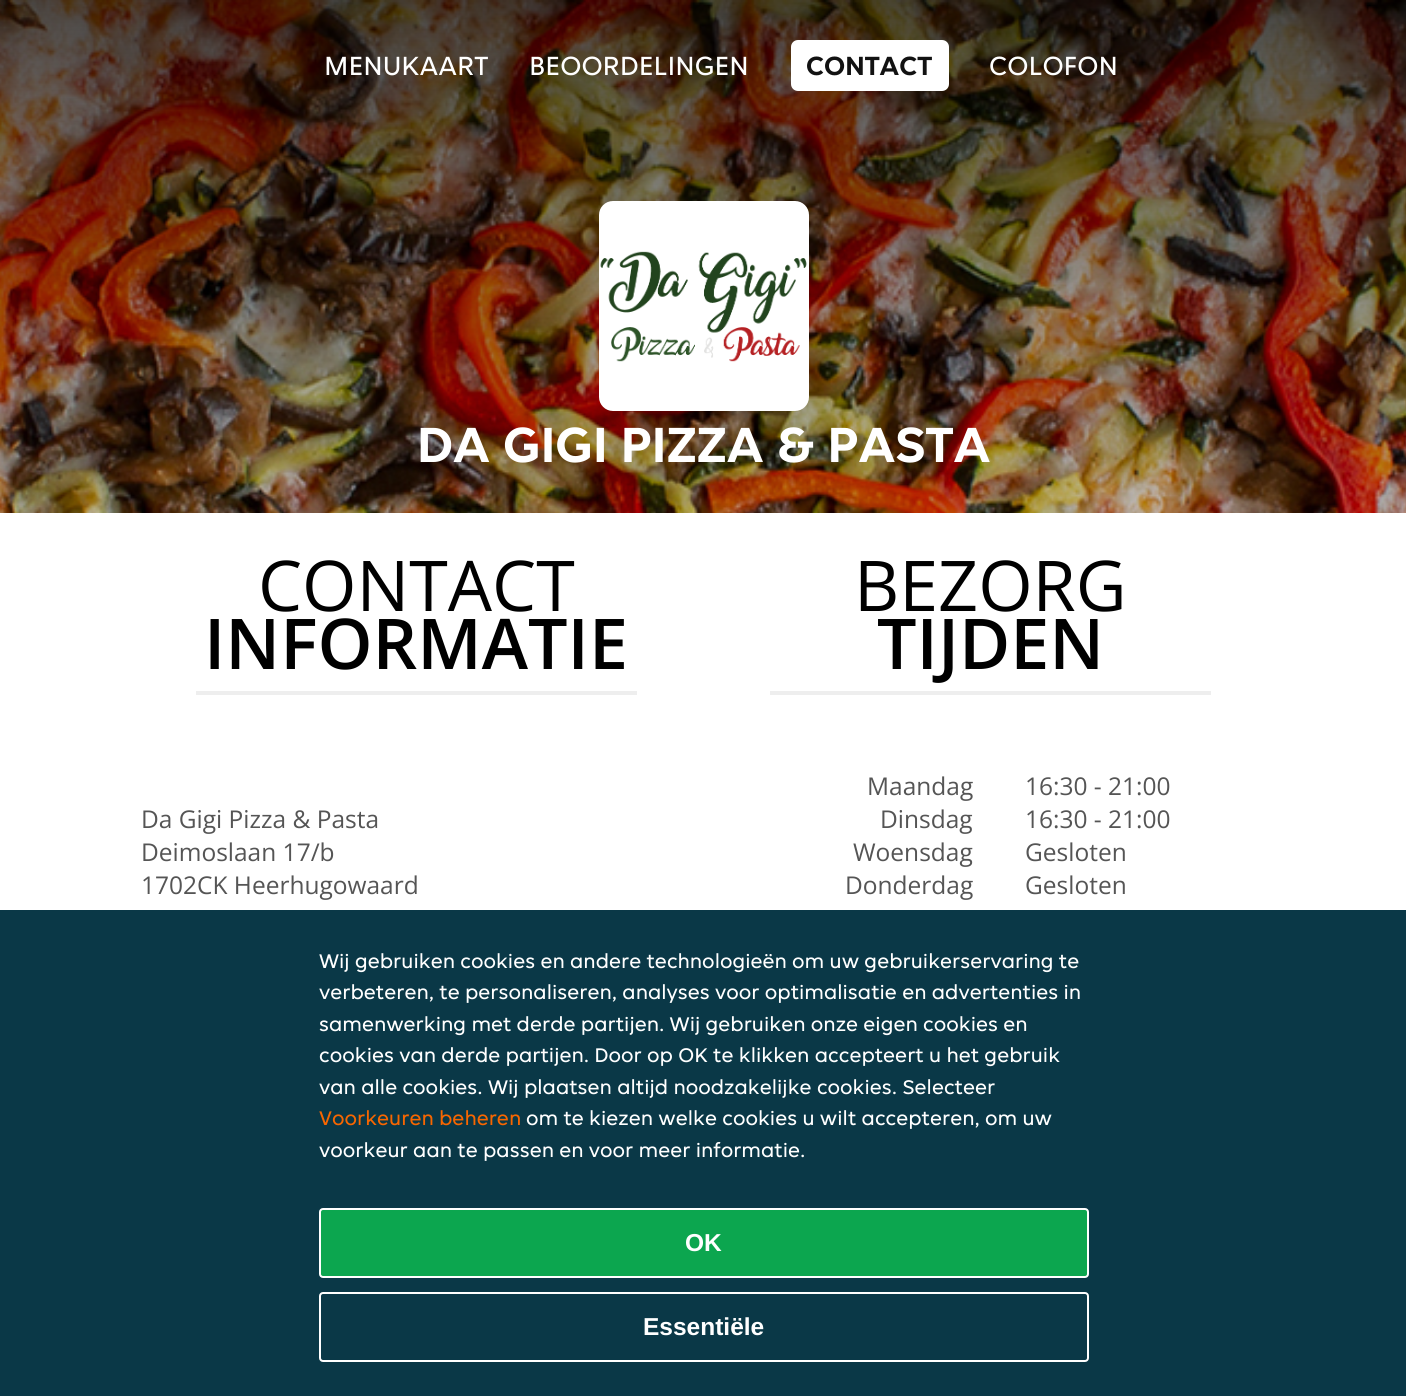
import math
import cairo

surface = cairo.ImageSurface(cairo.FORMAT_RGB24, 1406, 1396)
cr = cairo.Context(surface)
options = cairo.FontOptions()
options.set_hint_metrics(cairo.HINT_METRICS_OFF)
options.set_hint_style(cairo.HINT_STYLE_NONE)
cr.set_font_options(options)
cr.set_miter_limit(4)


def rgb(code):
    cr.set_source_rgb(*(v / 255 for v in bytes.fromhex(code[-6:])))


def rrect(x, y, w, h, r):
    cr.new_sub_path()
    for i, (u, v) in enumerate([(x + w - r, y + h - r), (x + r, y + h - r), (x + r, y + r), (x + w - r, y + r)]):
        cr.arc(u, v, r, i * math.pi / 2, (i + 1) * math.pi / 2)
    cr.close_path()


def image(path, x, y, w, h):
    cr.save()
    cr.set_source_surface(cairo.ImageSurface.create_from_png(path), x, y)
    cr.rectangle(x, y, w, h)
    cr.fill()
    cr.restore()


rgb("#ffffff")
cr.paint()
image("img/1.png", 0, 0, 1406, 513)
gradient = cairo.LinearGradient(703, 0, 704, 875)
gradient.add_color_stop_rgba(0, 0, 0, 0, 0.7)
gradient.add_color_stop_rgba(0.33, 0, 0, 0, 0.4)
gradient.add_color_stop_rgba(0.67, 0, 0, 0, 0.2)
gradient.add_color_stop_rgba(1, 0, 0, 0, 0)
cr.set_source(gradient)
cr.rectangle(0, 0, 1406, 513)
cr.fill()
rgb("#ffffff")
rrect(791, 40, 158, 51, 7)
cr.fill()
rrect(599, 201, 210, 210, 14)
cr.fill()
image("img/2.png", 600, 251, 207, 111)
for x, y, w, h, color in [
    (196, 691, 441, 4, "#eeeeee"),
    (770, 691, 441, 4, "#eeeeee"),
    (0, 910, 1406, 486, "#0a3847"),
]:
    rgb(color)
    cr.rectangle(x, y, w, h)
    cr.fill()
rgb("#0ca64f")
rrect(320, 1209, 768, 68, 3)
cr.fill_preserve()
rgb("#ffffff")
cr.stroke()
rrect(320, 1293, 768, 68, 3)
cr.stroke()
cr.select_font_face("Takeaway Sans")
cr.set_font_size(28)
cr.move_to(324, 75)
cr.show_text("MENUKAART")
cr.move_to(529, 75)
cr.show_text("BEOORDELINGEN")
cr.select_font_face("Takeaway Sans", cairo.FONT_SLANT_NORMAL, cairo.FONT_WEIGHT_BOLD)
rgb("#121212")
cr.move_to(806, 75)
cr.show_text("CONTACT")
cr.select_font_face("Takeaway Sans")
rgb("#ffffff")
cr.move_to(989, 75)
cr.show_text("COLOFON")
cr.select_font_face("Takeaway Sans", cairo.FONT_SLANT_NORMAL, cairo.FONT_WEIGHT_BOLD)
cr.set_font_size(52.5)
cr.move_to(417, 462)
cr.show_text("DA GIGI PIZZA & PASTA")
cr.select_font_face("Open Sans")
cr.set_font_size(70)
rgb("#000000")
cr.move_to(258, 611)
cr.show_text("CONTACT")
cr.select_font_face("Open Sans SemiBold")
cr.move_to(204, 669)
cr.show_text("INFORMATIE")
cr.select_font_face("Open Sans")
cr.set_font_size(24.5)
rgb("#555555")
for x, y, s in [
    (141, 828, "Da Gigi Pizza & Pasta"),
    (141, 861, "Deimoslaan 17/b"),
    (141, 894, "1702CK Heerhugowaard"),
]:
    cr.move_to(x, y)
    cr.show_text(s)
cr.set_font_size(70)
rgb("#000000")
cr.move_to(854, 611)
cr.show_text("BEZORG")
cr.select_font_face("Open Sans SemiBold")
cr.move_to(877, 669)
cr.show_text("TIJDEN")
cr.select_font_face("Open Sans")
cr.set_font_size(24.5)
rgb("#555555")
for x, y, s in [
    (867, 795, "Maandag"),
    (1025, 795, "16:30 - 21:00"),
    (880, 828, "Dinsdag"),
    (1025, 828, "16:30 - 21:00"),
    (853, 861, "Woensdag"),
    (1025, 861, "Gesloten"),
    (845, 894, "Donderdag"),
    (1025, 894, "Gesloten"),
]:
    cr.move_to(x, y)
    cr.show_text(s)
cr.select_font_face("Takeaway Sans")
cr.set_font_size(21)
rgb("#ffffff")
for x, y, s in [
    (319, 968, "Wij gebruiken cookies en andere technologieën om uw gebruikerservaring te"),
    (319, 999, "verbeteren, te personaliseren, analyses voor optimalisatie en advertenties in"),
    (319, 1031, "samenwerking met derde partijen. Wij gebruiken onze eigen cookies en"),
    (319, 1062, "cookies van derde partijen. Door op OK te klikken accepteert u het gebruik"),
    (319, 1094, "van alle cookies. Wij plaatsen altijd noodzakelijke cookies. Selecteer"),
]:
    cr.move_to(x, y)
    cr.show_text(s)
rgb("#f86600")
cr.move_to(319, 1125)
cr.show_text("Voorkeuren beheren")
rgb("#ffffff")
cr.move_to(526, 1125)
cr.show_text("om te kiezen welke cookies u wilt accepteren, om uw")
cr.move_to(319, 1157)
cr.show_text("voorkeur aan te passen en voor meer informatie.")
cr.select_font_face("Liberation Sans", cairo.FONT_SLANT_NORMAL, cairo.FONT_WEIGHT_BOLD)
cr.set_font_size(24.5)
cr.move_to(685, 1251)
cr.show_text("OK")
cr.move_to(643, 1335)
cr.show_text("Essentiële")
surface.write_to_png("page.png")
